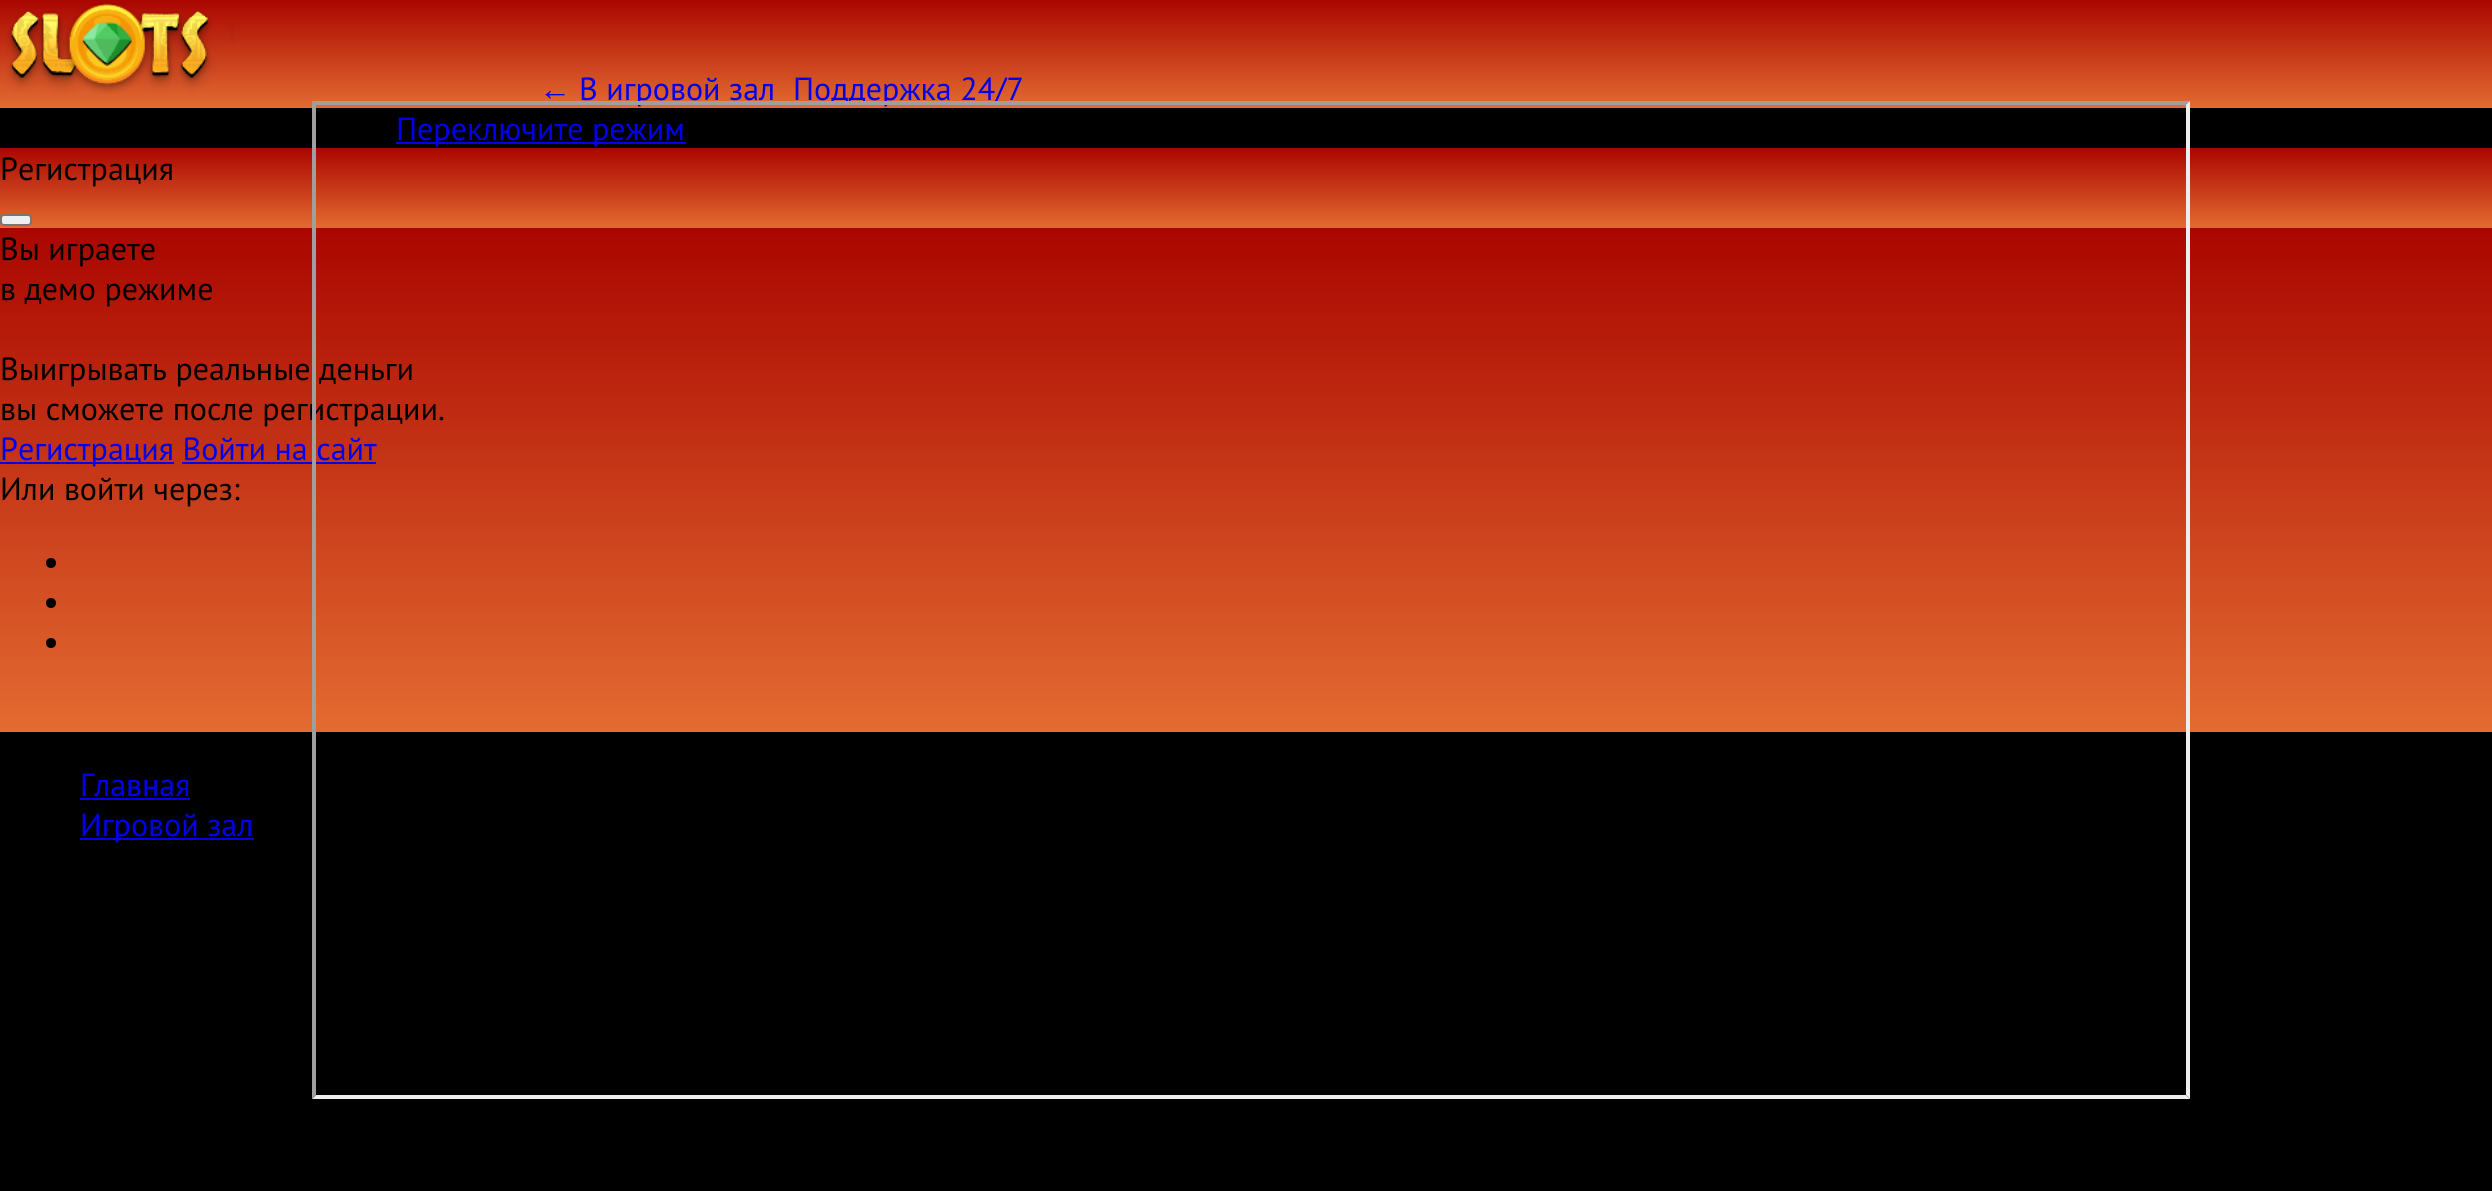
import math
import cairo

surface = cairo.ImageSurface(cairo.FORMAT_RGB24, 2492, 1191)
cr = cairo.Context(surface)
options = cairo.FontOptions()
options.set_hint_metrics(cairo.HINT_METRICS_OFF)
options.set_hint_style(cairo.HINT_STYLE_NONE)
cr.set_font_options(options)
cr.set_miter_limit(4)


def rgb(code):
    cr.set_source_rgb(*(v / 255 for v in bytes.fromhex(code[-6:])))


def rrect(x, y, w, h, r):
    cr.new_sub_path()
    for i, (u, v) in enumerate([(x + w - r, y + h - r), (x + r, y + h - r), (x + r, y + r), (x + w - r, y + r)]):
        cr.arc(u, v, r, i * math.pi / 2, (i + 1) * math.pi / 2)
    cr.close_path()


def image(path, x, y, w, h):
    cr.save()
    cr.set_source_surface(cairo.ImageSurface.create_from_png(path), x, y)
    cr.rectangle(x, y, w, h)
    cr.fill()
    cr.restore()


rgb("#000000")
cr.paint()
gradient = cairo.LinearGradient(1246, 0, 1246, 108)
gradient.add_color_stop_rgba(0, 0.667, 0.024, 0, 1)
gradient.add_color_stop_rgba(1, 0.89, 0.42, 0.192, 1)
cr.set_source(gradient)
cr.rectangle(0, 0, 2492, 108)
cr.fill()
image("img/1.png", 6, 2, 229, 92)
rgb("#0000ee")
cr.rectangle(396, 142, 290, 2)
cr.fill()
gradient = cairo.LinearGradient(1246, 148, 1246, 228)
gradient.add_color_stop_rgba(0, 0.667, 0.024, 0, 1)
gradient.add_color_stop_rgba(1, 0.89, 0.42, 0.192, 1)
cr.set_source(gradient)
cr.rectangle(0, 148, 2492, 80)
cr.fill()
rgb("#efefef")
rrect(1, 215, 30, 10, 3)
cr.fill_preserve()
rgb("#767676")
cr.stroke()
gradient = cairo.LinearGradient(1246, 228, 1246, 732)
gradient.add_color_stop_rgba(0, 0.667, 0.024, 0, 1)
gradient.add_color_stop_rgba(1, 0.89, 0.42, 0.192, 1)
cr.set_source(gradient)
cr.rectangle(0, 228, 2492, 504)
cr.fill()
rgb("#0000ee")
cr.rectangle(0, 462, 174, 2)
cr.fill()
cr.rectangle(182, 462, 194, 2)
cr.fill()
rgb("#000000")
cr.arc(51, 563, 5, 0, 2 * math.pi)
cr.fill()
cr.arc(51, 603, 5, 0, 2 * math.pi)
cr.fill()
cr.arc(51, 643, 5, 0, 2 * math.pi)
cr.fill()
rgb("#0000ee")
cr.rectangle(80, 798, 110, 2)
cr.fill()
cr.rectangle(80, 838, 174, 2)
cr.fill()
cr.select_font_face("Liberation Sans")
cr.set_font_size(32)
cr.move_to(539, 100)
cr.show_text("←")
cr.select_font_face("PT Sans")
cr.move_to(579, 100)
cr.show_text("В игровой зал")
cr.move_to(793, 100)
cr.show_text("Поддержка 24/7")
rgb("#9f9f9f")
cr.new_path()
cr.move_to(312, 101)
cr.line_to(2190, 101)
cr.line_to(2186, 105)
cr.line_to(316, 105)
cr.close_path()
cr.fill()
rgb("#eeeeee")
cr.new_path()
cr.move_to(2190, 101)
cr.line_to(2190, 1099)
cr.line_to(2186, 1095)
cr.line_to(2186, 105)
cr.close_path()
cr.fill()
cr.new_path()
cr.move_to(2190, 1099)
cr.line_to(312, 1099)
cr.line_to(316, 1095)
cr.line_to(2186, 1095)
cr.close_path()
cr.fill()
rgb("#0000ee")
cr.move_to(396, 140)
cr.show_text("Переключите режим")
rgb("#000000")
for x, y, s in [
    (0, 180, "Регистрация"),
    (0, 260, "Вы играете"),
    (0, 300, "в демо режиме"),
    (0, 380, "Выигрывать реальные деньги"),
    (0, 420, "вы сможете после регистрации."),
]:
    cr.move_to(x, y)
    cr.show_text(s)
rgb("#0000ee")
cr.move_to(0, 460)
cr.show_text("Регистрация Войти на сайт")
rgb("#9f9f9f")
cr.new_path()
cr.move_to(312, 1099)
cr.line_to(312, 101)
cr.line_to(316, 105)
cr.line_to(316, 1095)
cr.close_path()
cr.fill()
rgb("#000000")
cr.move_to(0, 500)
cr.show_text("Или войти через:")
rgb("#0000ee")
cr.move_to(80, 796)
cr.show_text("Главная")
cr.move_to(80, 836)
cr.show_text("Игровой зал")
surface.write_to_png("page.png")
